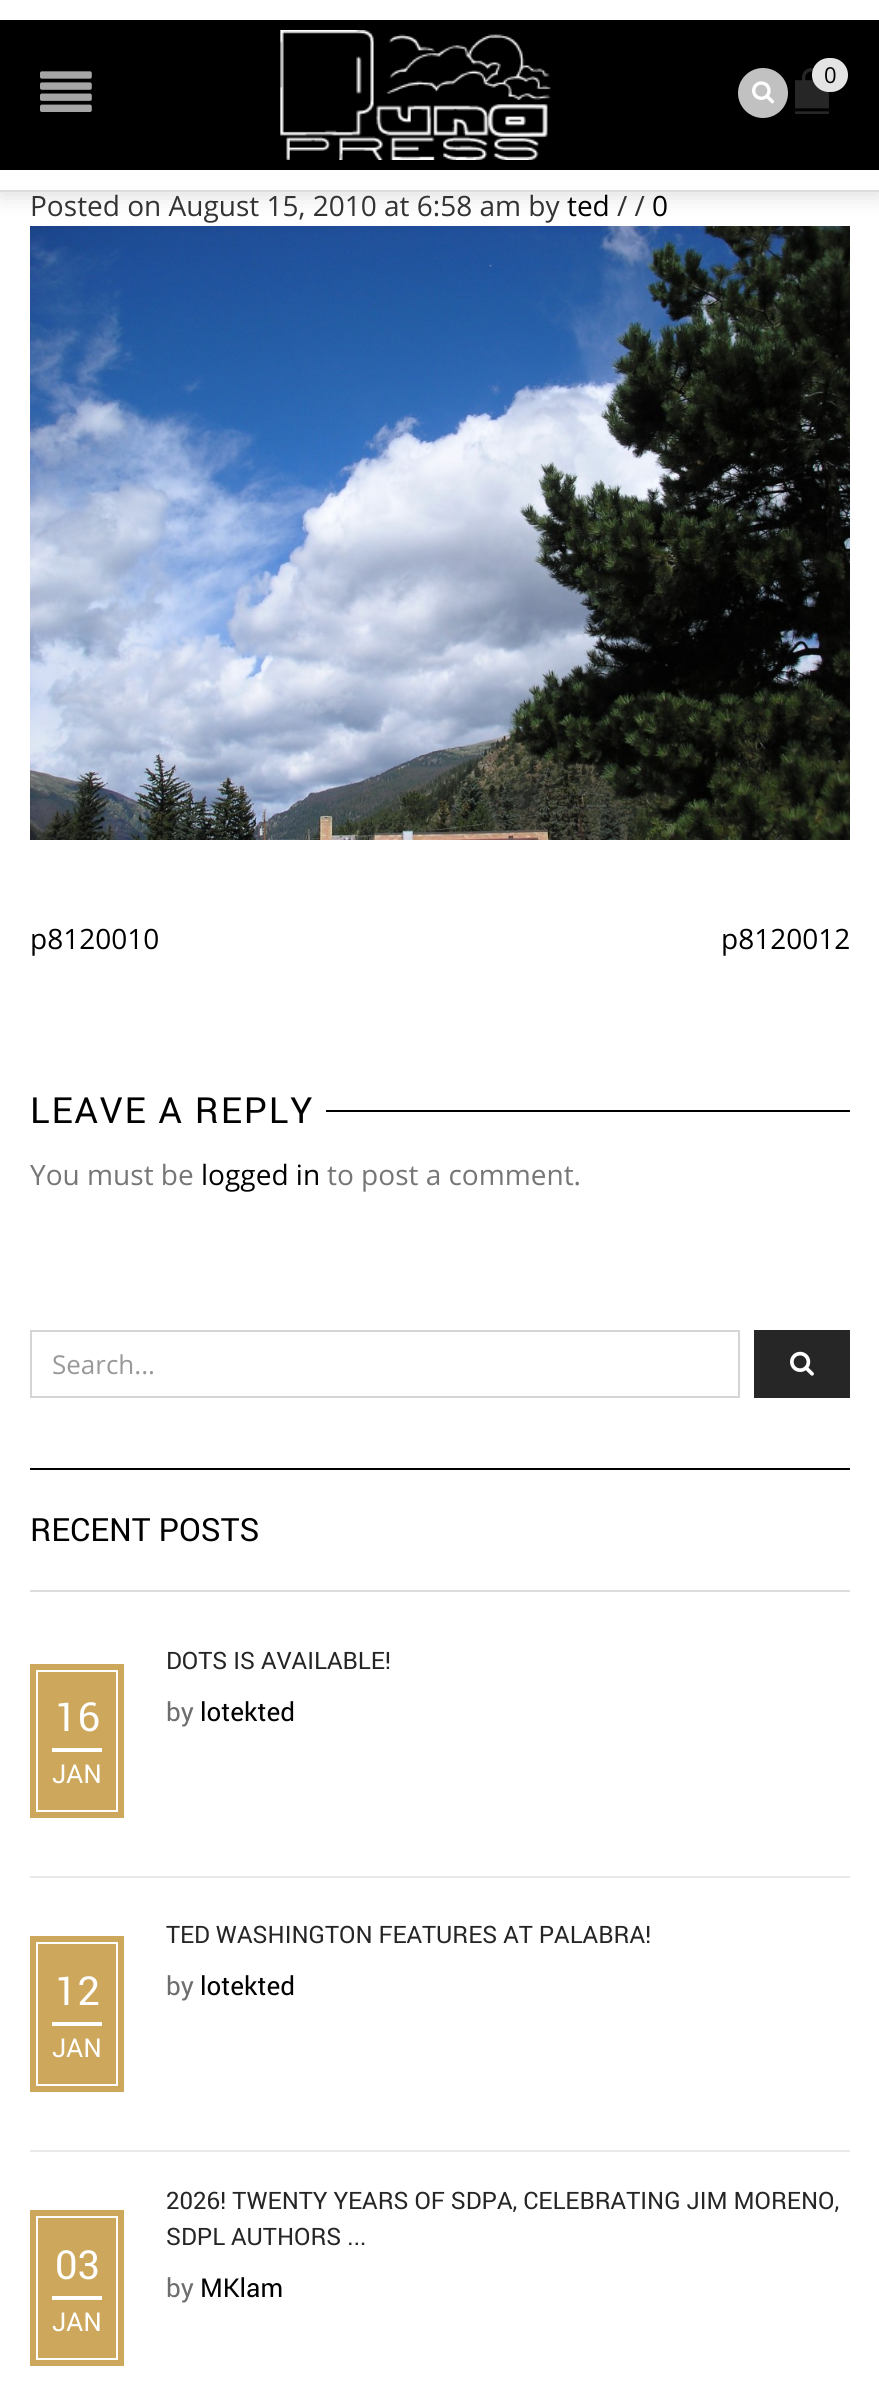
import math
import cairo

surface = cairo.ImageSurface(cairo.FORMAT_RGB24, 879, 2397)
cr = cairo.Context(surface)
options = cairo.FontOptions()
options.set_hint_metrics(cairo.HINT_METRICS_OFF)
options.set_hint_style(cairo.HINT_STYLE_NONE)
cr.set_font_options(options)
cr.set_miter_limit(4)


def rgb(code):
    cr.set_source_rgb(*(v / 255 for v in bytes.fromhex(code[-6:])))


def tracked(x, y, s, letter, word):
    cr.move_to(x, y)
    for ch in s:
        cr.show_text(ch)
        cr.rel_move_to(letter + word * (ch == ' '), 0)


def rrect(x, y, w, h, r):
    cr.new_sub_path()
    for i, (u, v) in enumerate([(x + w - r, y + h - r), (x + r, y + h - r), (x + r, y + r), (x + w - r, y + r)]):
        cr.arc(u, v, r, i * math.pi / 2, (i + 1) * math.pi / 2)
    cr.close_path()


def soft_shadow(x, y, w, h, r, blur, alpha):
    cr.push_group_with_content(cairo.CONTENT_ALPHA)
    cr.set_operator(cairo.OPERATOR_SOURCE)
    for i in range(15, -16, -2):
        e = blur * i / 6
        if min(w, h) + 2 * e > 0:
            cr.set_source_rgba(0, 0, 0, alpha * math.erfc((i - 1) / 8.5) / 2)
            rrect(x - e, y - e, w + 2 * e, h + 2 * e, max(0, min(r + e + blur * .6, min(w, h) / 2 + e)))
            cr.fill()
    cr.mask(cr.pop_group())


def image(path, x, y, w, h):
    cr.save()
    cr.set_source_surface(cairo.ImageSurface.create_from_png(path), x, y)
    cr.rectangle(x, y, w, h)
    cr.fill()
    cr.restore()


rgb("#ffffff")
cr.paint()
image("img/5.png", 30, 226, 820, 614)
rgb("#000000")
soft_shadow(0, 2, 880, 192, 0, 12, 0.15)
for x, y, w, h, color in [
    (0, 0, 879, 190, "#ffffff"),
    (0, 190, 879, 2, "#dddddd"),
    (0, 20, 879, 150, "#000000"),
]:
    rgb(color)
    cr.rectangle(x, y, w, h)
    cr.fill()
image("img/1.png", 40, 71, 52, 41)
image("img/2.png", 280, 30, 271, 130)
rgb("#c1c1c1")
cr.arc(763, 93, 25, 0, 2 * math.pi)
cr.fill()
image("img/3.png", 752, 81, 22, 23)
image("img/4.png", 795, 68, 34, 46)
rgb("#e4e4e4")
rrect(812, 58, 36, 34, 17)
cr.fill()
rgb("#000000")
cr.rectangle(326, 1110, 524, 2)
cr.fill()
cr.rectangle(31, 1331, 708, 66)
rgb("#d5d5d5")
cr.stroke()
rgb("#262626")
cr.rectangle(754, 1330, 96, 68)
cr.fill()
image("img/6.png", 790, 1351, 24, 25)
for x, y, w, h, color in [
    (30, 1468, 820, 2, "#000000"),
    (30, 1590, 820, 2, "#dddddd"),
    (30, 1876, 820, 2, "#e9e9e9"),
    (30, 1664, 94, 154, "#cda85c"),
    (52, 1748, 50, 4, "#ffffff"),
]:
    rgb(color)
    cr.rectangle(x, y, w, h)
    cr.fill()
cr.rectangle(37, 1671, 80, 140)
cr.stroke()
for x, y, w, h, color in [
    (30, 2150, 820, 2, "#e9e9e9"),
    (30, 1936, 94, 156, "#cda85c"),
    (52, 2022, 50, 4, "#ffffff"),
]:
    rgb(color)
    cr.rectangle(x, y, w, h)
    cr.fill()
cr.rectangle(37, 1943, 80, 142)
cr.stroke()
rgb("#cda85c")
cr.rectangle(30, 2210, 94, 156)
cr.fill()
rgb("#ffffff")
cr.rectangle(52, 2296, 50, 4)
cr.fill()
cr.rectangle(37, 2217, 80, 142)
cr.stroke()
cr.select_font_face("Open Sans")
cr.set_font_size(22)
rgb("#000000")
cr.move_to(824, 83)
cr.show_text("0")
cr.set_font_size(28)
rgb("#333333")
cr.move_to(30, 216)
cr.show_text("Posted on August 15, 2010 at 6:58 am by")
rgb("#000000")
cr.move_to(567, 216)
cr.show_text("ted")
rgb("#333333")
cr.move_to(617, 216)
cr.show_text("/ /")
rgb("#000000")
for x, y, s in [
    (652, 216, "0"),
    (30, 949, "p8120010"),
    (721, 949, "p8120012"),
]:
    cr.move_to(x, y)
    cr.show_text(s)
cr.select_font_face("Roboto")
cr.set_font_size(36)
tracked(30, 1123, "LEAVE A REPLY", 2, 0)
cr.select_font_face("Open Sans")
cr.set_font_size(28)
rgb("#767676")
cr.move_to(30, 1185)
cr.show_text("You must be")
rgb("#000000")
cr.move_to(201, 1185)
cr.show_text("logged in")
rgb("#767676")
cr.move_to(327, 1185)
cr.show_text("to post a comment.")
cr.set_font_size(26)
rgb("#999999")
cr.move_to(52, 1374)
cr.show_text("Search...")
cr.select_font_face("Roboto")
cr.set_font_size(32)
rgb("#000000")
cr.move_to(30, 1541)
cr.show_text("RECENT POSTS")
cr.set_font_size(24)
rgb("#252525")
cr.move_to(166, 1669)
cr.show_text("DOTS IS AVAILABLE!")
cr.set_font_size(26)
rgb("#6e6e6e")
cr.move_to(166, 1721)
cr.show_text("by")
rgb("#000000")
cr.move_to(200, 1721)
cr.show_text("lotekted")
cr.set_font_size(40)
rgb("#ffffff")
cr.move_to(55, 1731)
cr.show_text("16")
cr.set_font_size(26)
cr.move_to(52, 1783)
cr.show_text("JAN")
cr.set_font_size(24)
rgb("#252525")
cr.move_to(166, 1943)
cr.show_text("TED WASHINGTON FEATURES AT PALABRA!")
cr.set_font_size(26)
rgb("#6e6e6e")
cr.move_to(166, 1995)
cr.show_text("by")
rgb("#000000")
cr.move_to(200, 1995)
cr.show_text("lotekted")
cr.set_font_size(40)
rgb("#ffffff")
cr.move_to(55, 2005)
cr.show_text("12")
cr.set_font_size(26)
cr.move_to(52, 2057)
cr.show_text("JAN")
cr.set_font_size(40)
cr.move_to(55, 2279)
cr.show_text("03")
cr.set_font_size(26)
cr.move_to(52, 2331)
cr.show_text("JAN")
cr.set_font_size(24)
rgb("#252525")
cr.move_to(166, 2209)
cr.show_text("2026! TWENTY YEARS OF SDPA, CELEBRATING JIM MORENO,")
cr.move_to(166, 2245)
cr.show_text("SDPL AUTHORS ...")
cr.set_font_size(26)
rgb("#6e6e6e")
cr.move_to(166, 2297)
cr.show_text("by")
rgb("#000000")
cr.move_to(200, 2297)
cr.show_text("MKlam")
surface.write_to_png("page.png")
